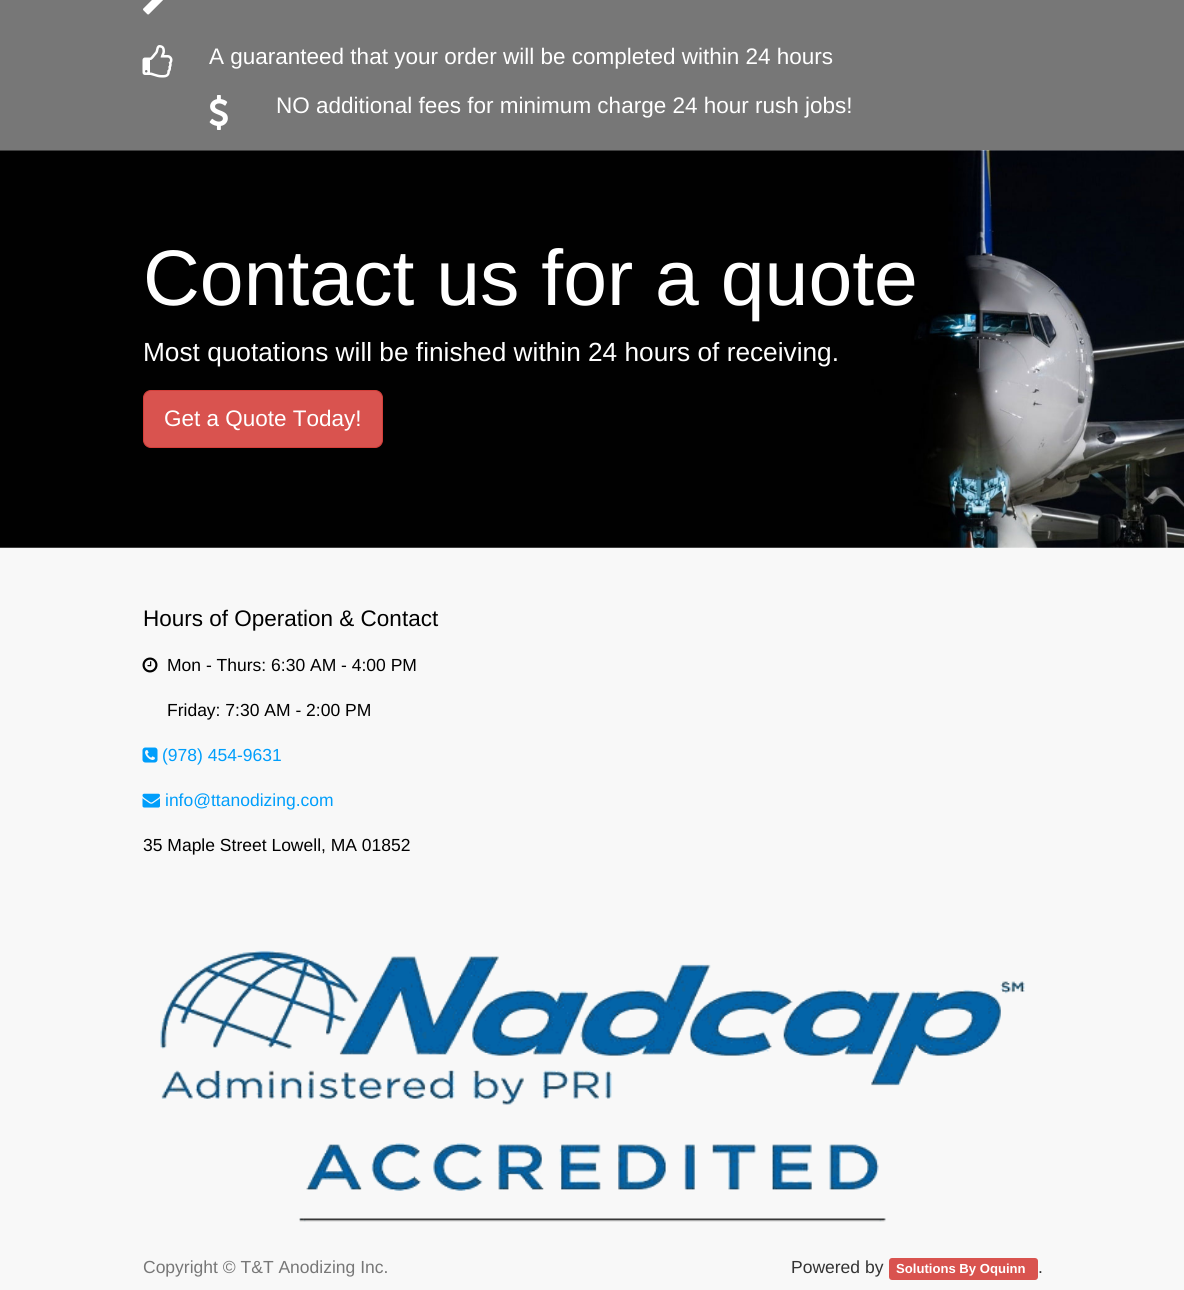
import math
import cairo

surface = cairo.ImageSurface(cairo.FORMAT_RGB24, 1184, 1290)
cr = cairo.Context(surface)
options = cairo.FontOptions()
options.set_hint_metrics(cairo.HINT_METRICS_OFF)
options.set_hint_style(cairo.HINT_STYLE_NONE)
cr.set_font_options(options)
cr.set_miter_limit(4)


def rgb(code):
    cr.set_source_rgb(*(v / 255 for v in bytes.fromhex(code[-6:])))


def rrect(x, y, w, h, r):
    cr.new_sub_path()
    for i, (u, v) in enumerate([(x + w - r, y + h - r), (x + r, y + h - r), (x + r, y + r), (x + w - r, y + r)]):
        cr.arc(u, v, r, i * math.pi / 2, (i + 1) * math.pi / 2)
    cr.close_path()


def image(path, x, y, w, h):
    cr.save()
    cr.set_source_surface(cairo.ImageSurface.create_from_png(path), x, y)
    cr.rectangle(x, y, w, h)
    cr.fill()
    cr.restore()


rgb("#ffffff")
cr.paint()
rgb("#777777")
cr.rectangle(0, 0, 1184, 150)
cr.fill()
image("img/1.png", 143, 0, 20, 15)
image("img/2.png", 142, 45, 31, 33)
image("img/3.png", 209, 95, 19, 35)
image("img/4.png", 0, 150, 1184, 398)
rgb("#d9534f")
rrect(143.5, 390.5, 239, 57, 7.5)
cr.fill_preserve()
rgb("#d43f3a")
cr.set_line_width(1)
cr.stroke()
rgb("#f8f8f8")
cr.rectangle(0, 548, 1184, 742)
cr.fill()
image("img/5.png", 142, 657, 16, 16)
image("img/6.png", 142, 747, 16, 16)
image("img/7.png", 142, 793, 18, 15)
image("img/8.png", 160, 950, 865, 272)
rgb("#d9534f")
rrect(889, 1258, 149, 22, 3)
cr.fill()
cr.select_font_face("Liberation Sans")
cr.set_font_size(22.5)
rgb("#ffffff")
cr.move_to(209, 64)
cr.show_text("A guaranteed that your order will be completed within 24 hours")
cr.move_to(276, 113)
cr.show_text("NO additional fees for minimum charge 24 hour rush jobs!")
cr.set_font_size(78.75)
cr.move_to(143, 305)
cr.show_text("Contact us for a quote")
cr.set_font_size(26.25)
cr.move_to(143, 361)
cr.show_text("Most quotations will be finished within 24 hours of receiving.")
cr.set_font_size(22.5)
cr.move_to(164, 426)
cr.show_text("Get a Quote Today!")
rgb("#000000")
cr.move_to(143, 626)
cr.show_text("Hours of Operation & Contact")
cr.set_font_size(17.5)
cr.move_to(167, 671)
cr.show_text("Mon - Thurs: 6:30 AM - 4:00 PM")
cr.move_to(167, 716)
cr.show_text("Friday: 7:30 AM - 2:00 PM")
rgb("#009efb")
cr.move_to(162, 761)
cr.show_text("(978) 454-9631")
cr.move_to(165, 806)
cr.show_text("info@ttanodizing.com")
rgb("#000000")
cr.move_to(143, 851)
cr.show_text("35 Maple Street Lowell, MA 01852")
rgb("#777777")
cr.move_to(143, 1273)
cr.show_text("Copyright © T&T Anodizing Inc.")
rgb("#333333")
cr.move_to(791, 1273)
cr.show_text("Powered by")
cr.select_font_face("Liberation Sans", cairo.FONT_SLANT_NORMAL, cairo.FONT_WEIGHT_BOLD)
cr.set_font_size(13.1)
rgb("#ffffff")
cr.move_to(896, 1273)
cr.show_text("Solutions By Oquinn")
cr.select_font_face("Liberation Sans")
cr.set_font_size(17.5)
rgb("#333333")
cr.move_to(1038, 1273)
cr.show_text(".")
surface.write_to_png("page.png")
